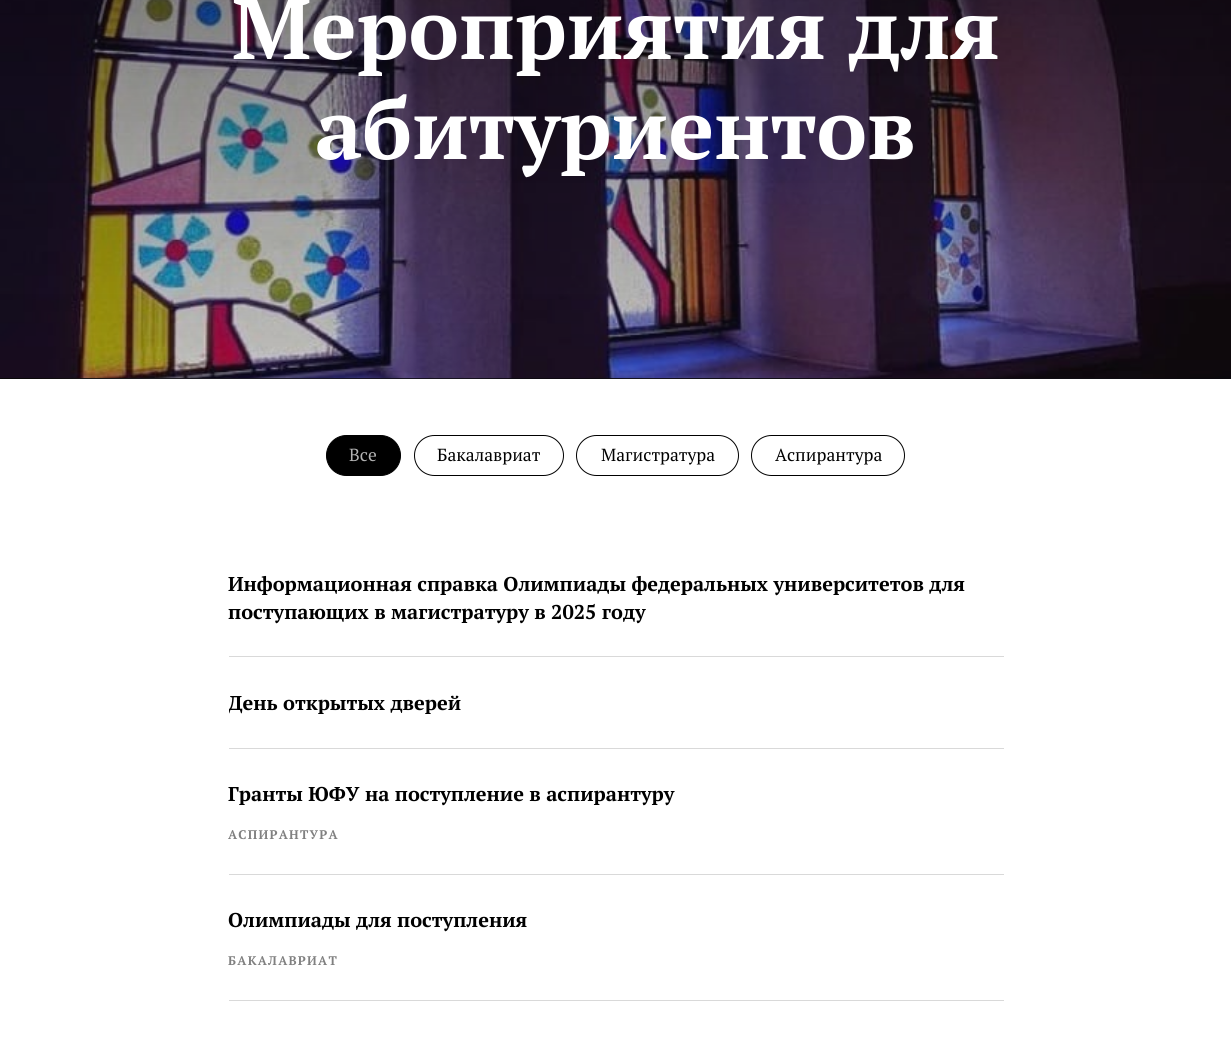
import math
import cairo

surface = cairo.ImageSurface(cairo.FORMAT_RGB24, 1231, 1040)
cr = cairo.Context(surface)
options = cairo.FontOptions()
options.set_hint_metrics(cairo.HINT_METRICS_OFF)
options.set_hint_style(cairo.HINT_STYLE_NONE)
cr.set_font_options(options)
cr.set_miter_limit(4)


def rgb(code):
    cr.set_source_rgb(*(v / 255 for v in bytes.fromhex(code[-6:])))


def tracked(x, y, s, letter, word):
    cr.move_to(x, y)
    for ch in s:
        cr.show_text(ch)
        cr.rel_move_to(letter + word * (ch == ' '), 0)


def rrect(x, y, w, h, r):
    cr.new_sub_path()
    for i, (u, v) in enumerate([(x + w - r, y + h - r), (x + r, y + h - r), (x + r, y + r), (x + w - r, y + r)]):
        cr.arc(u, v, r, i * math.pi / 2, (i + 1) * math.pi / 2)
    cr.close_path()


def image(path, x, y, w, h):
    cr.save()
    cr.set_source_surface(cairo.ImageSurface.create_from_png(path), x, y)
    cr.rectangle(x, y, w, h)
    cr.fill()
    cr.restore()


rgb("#ffffff")
cr.paint()
rgb("#000000")
cr.rectangle(0, 378, 1231, 1)
cr.fill()
image("img/1.png", 0, 378, 1231, 1)
image("img/2.png", 0, 0, 1231, 379)
gradient = cairo.LinearGradient(616, -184, 616, 379)
gradient.add_color_stop_rgba(0, 0, 0, 0, 0.6)
gradient.add_color_stop_rgba(1, 0.133, 0.133, 0.133, 0.2)
cr.set_source(gradient)
cr.rectangle(0, 0, 1231, 379)
cr.fill()
rgb("#000000")
rrect(326.5, 435.5, 74, 40, 20)
cr.fill_preserve()
cr.set_line_width(1)
cr.stroke()
rrect(414.5, 435.5, 149, 40, 20)
cr.stroke()
rrect(576.5, 435.5, 162, 40, 20)
cr.stroke()
rrect(751.5, 435.5, 153, 40, 20)
cr.stroke()
for x, y, w, h, color in [
    (229, 656, 775, 1, "#d9d9d9"),
    (229, 748, 775, 1, "#d9d9d9"),
    (229, 874, 775, 1, "#d9d9d9"),
    (229, 1000, 775, 1, "#d9d9d9"),
]:
    rgb(color)
    cr.rectangle(x, y, w, h)
    cr.fill()
cr.select_font_face("PT Serif", cairo.FONT_SLANT_NORMAL, cairo.FONT_WEIGHT_BOLD)
cr.set_font_size(85)
rgb("#ffffff")
cr.move_to(232, 59)
cr.show_text("Мероприятия для")
cr.move_to(315, 159)
cr.show_text("абитуриентов")
cr.select_font_face("PT Serif")
cr.set_font_size(17.5)
rgb("#b3b3b3")
cr.move_to(349, 461)
cr.show_text("Все")
rgb("#000000")
for x, y, s in [
    (437, 461, "Бакалавриат"),
    (601, 461, "Магистратура"),
    (775, 461, "Аспирантура"),
]:
    cr.move_to(x, y)
    cr.show_text(s)
cr.select_font_face("PT Serif", cairo.FONT_SLANT_NORMAL, cairo.FONT_WEIGHT_BOLD)
cr.set_font_size(20)
cr.move_to(228, 591)
cr.show_text("Информационная справка Олимпиады федеральных университетов для")
cr.move_to(228, 619)
cr.show_text("поступающих в магистратуру в 2025 году")
cr.save()
cr.rectangle(229, 689, 775, 27)
cr.clip()
cr.move_to(228, 710)
cr.show_text("День открытых дверей")
cr.restore()
cr.move_to(228, 801)
cr.show_text("Гранты ЮФУ на поступление в аспирантуру")
cr.set_font_size(12.5)
rgb("#808080")
tracked(228, 839, "АСПИРАНТУРА", 1.25, 0)
cr.set_font_size(20)
rgb("#000000")
cr.move_to(228, 927)
cr.show_text("Олимпиады для поступления")
cr.set_font_size(12.5)
rgb("#808080")
tracked(228, 965, "БАКАЛАВРИАТ", 1.25, 0)
surface.write_to_png("page.png")
